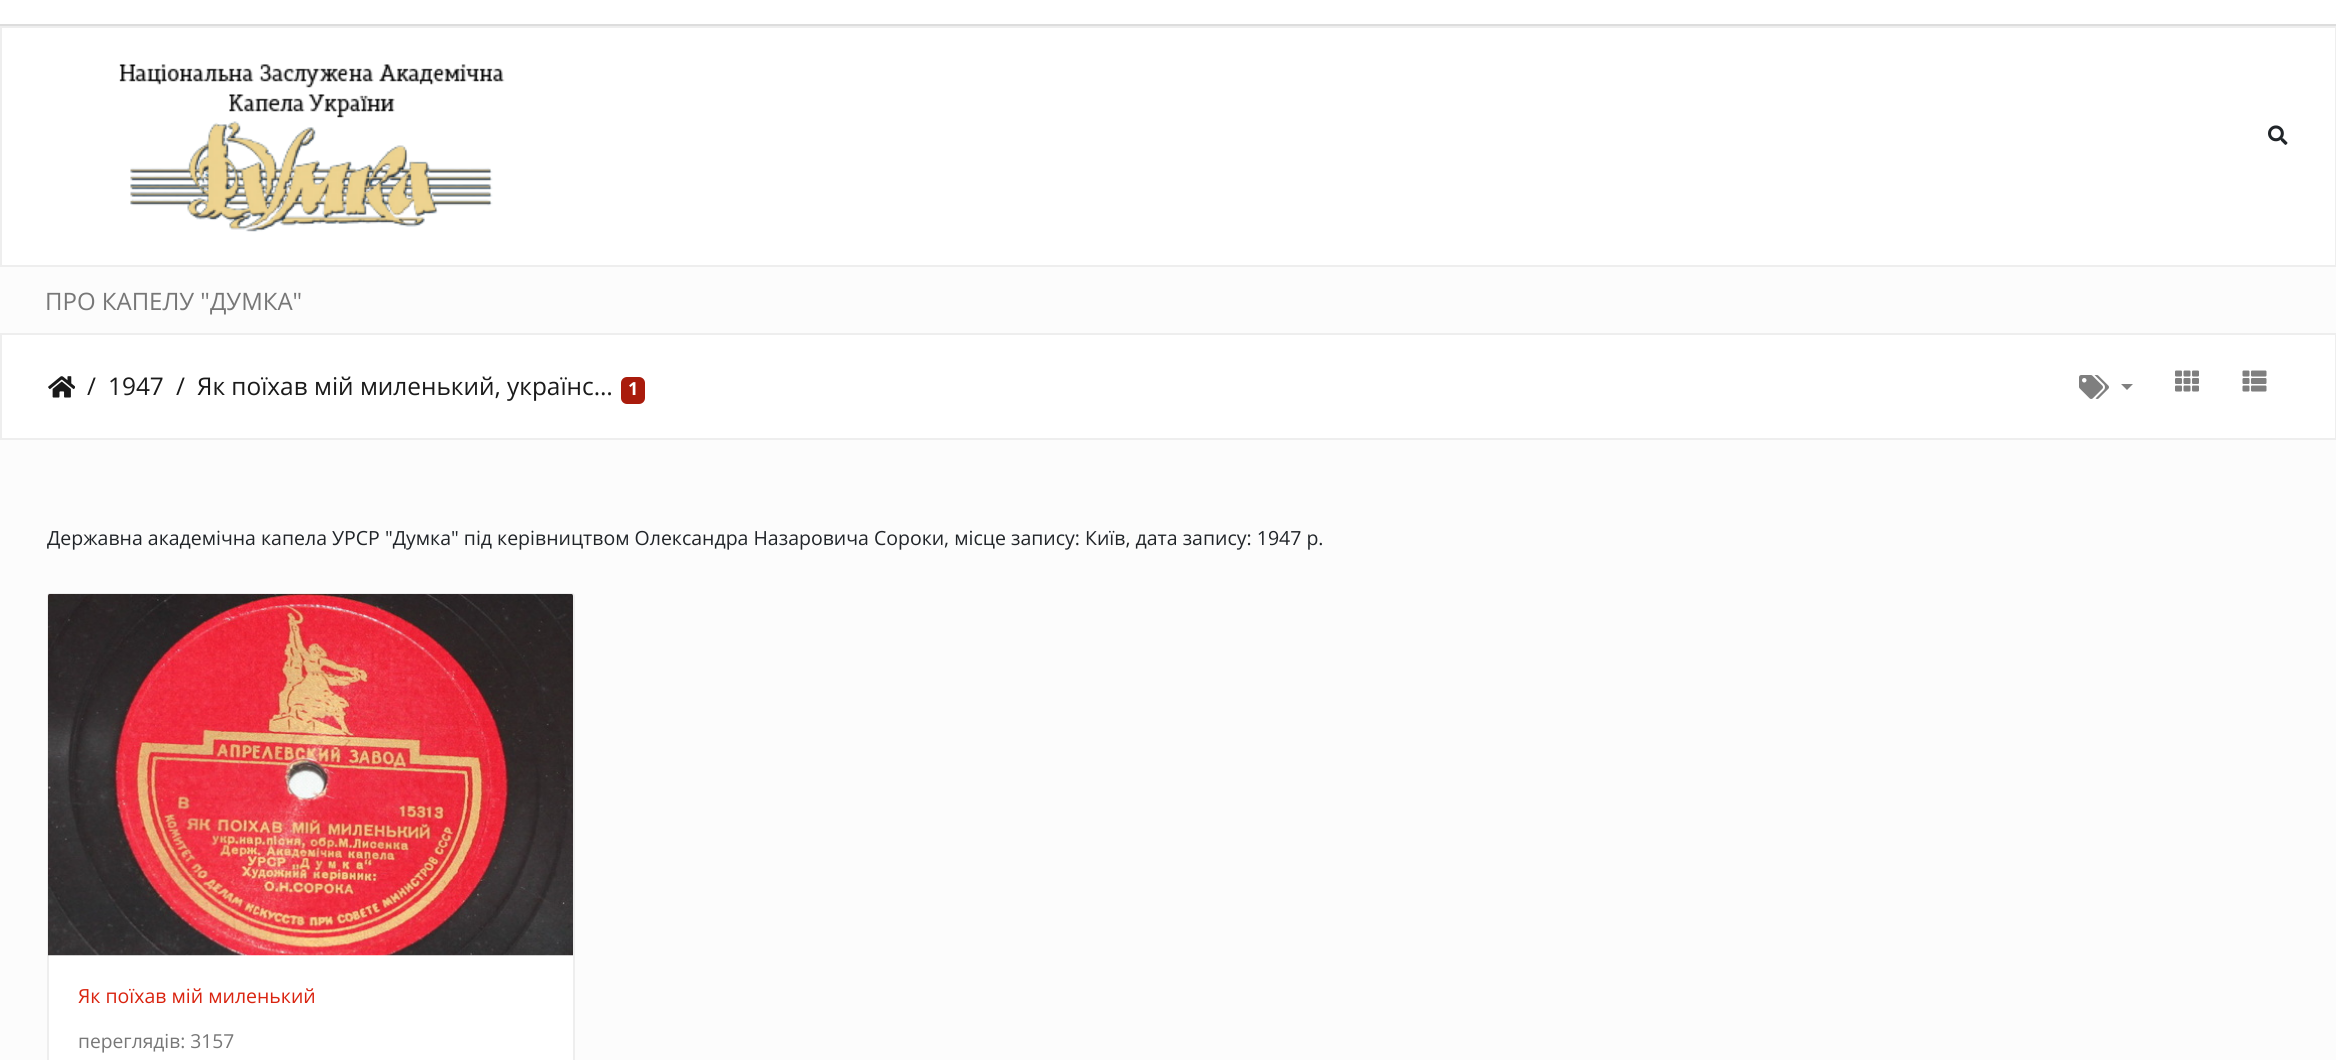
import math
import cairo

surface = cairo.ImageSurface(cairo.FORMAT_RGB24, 2336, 1060)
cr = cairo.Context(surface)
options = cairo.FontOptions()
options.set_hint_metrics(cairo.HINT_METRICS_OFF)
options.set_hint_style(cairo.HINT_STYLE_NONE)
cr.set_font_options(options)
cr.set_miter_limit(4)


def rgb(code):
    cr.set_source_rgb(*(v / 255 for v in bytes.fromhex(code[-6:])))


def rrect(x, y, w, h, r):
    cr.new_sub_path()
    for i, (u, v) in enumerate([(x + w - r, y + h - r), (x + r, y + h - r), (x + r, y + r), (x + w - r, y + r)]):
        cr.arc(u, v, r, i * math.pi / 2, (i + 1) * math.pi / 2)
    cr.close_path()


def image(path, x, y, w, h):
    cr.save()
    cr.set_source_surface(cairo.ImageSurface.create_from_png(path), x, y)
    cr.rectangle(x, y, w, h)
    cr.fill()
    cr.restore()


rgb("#fcfcfc")
cr.paint()
rgb("#ffffff")
cr.rectangle(0, 0, 2336, 24)
cr.fill()
rgb("#dddddd")
cr.rectangle(0, 24, 2336, 2)
cr.fill()
rgb("#ffffff")
cr.rectangle(1, 27, 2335, 239)
cr.fill_preserve()
rgb("#eeeeee")
cr.stroke()
image("img/1.png", 119, 64, 386, 168)
image("img/2.png", 2268, 125, 20, 20)
rgb("#ffffff")
cr.rectangle(1, 334, 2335, 105)
cr.fill_preserve()
rgb("#eeeeee")
cr.stroke()
image("img/3.png", 48, 376, 27, 22)
rgb("#a91b0c")
rrect(621, 377, 24, 27, 6)
cr.fill()
image("img/4.png", 2079, 375, 30, 24)
rgb("#808080")
cr.new_path()
cr.move_to(2121, 384)
cr.line_to(2133, 384)
cr.line_to(2127, 390)
cr.close_path()
cr.fill()
image("img/5.png", 2175, 370, 24, 22)
image("img/6.png", 2242, 370, 25, 22)
rgb("#ffffff")
rrect(48, 594, 526, 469, 2)
cr.fill_preserve()
rgb("#eeeeee")
cr.stroke()
image("img/7.png", 48, 594, 525, 362)
cr.select_font_face("Open Sans")
cr.set_font_size(24)
rgb("#777777")
cr.move_to(45, 310)
cr.show_text("ПРО КАПЕЛУ \"ДУМКА\"")
cr.set_font_size(24.4)
rgb("#1a1a1a")
for x, y, s in [
    (87, 395, "/"),
    (108, 395, "1947"),
    (176, 395, "/"),
    (197, 395, "Як поїхав мій миленький, українс…"),
]:
    cr.move_to(x, y)
    cr.show_text(s)
cr.select_font_face("Open Sans", cairo.FONT_SLANT_NORMAL, cairo.FONT_WEIGHT_BOLD)
cr.set_font_size(18)
rgb("#ffffff")
cr.move_to(628, 395)
cr.show_text("1")
cr.select_font_face("Open Sans")
cr.set_font_size(19.5)
rgb("#212529")
cr.move_to(47, 545)
cr.show_text("Державна академічна капела УРСР \"Думка\" пiд керівництвом Олександра Назаровича Сороки, місце запису: Київ, дата запису: 1947 р.")
rgb("#d9230f")
cr.move_to(78, 1003)
cr.show_text("Як поїхав мій миленький")
cr.set_font_size(19.25)
rgb("#777777")
cr.move_to(78, 1048)
cr.show_text("переглядів: 3157")
surface.write_to_png("page.png")
